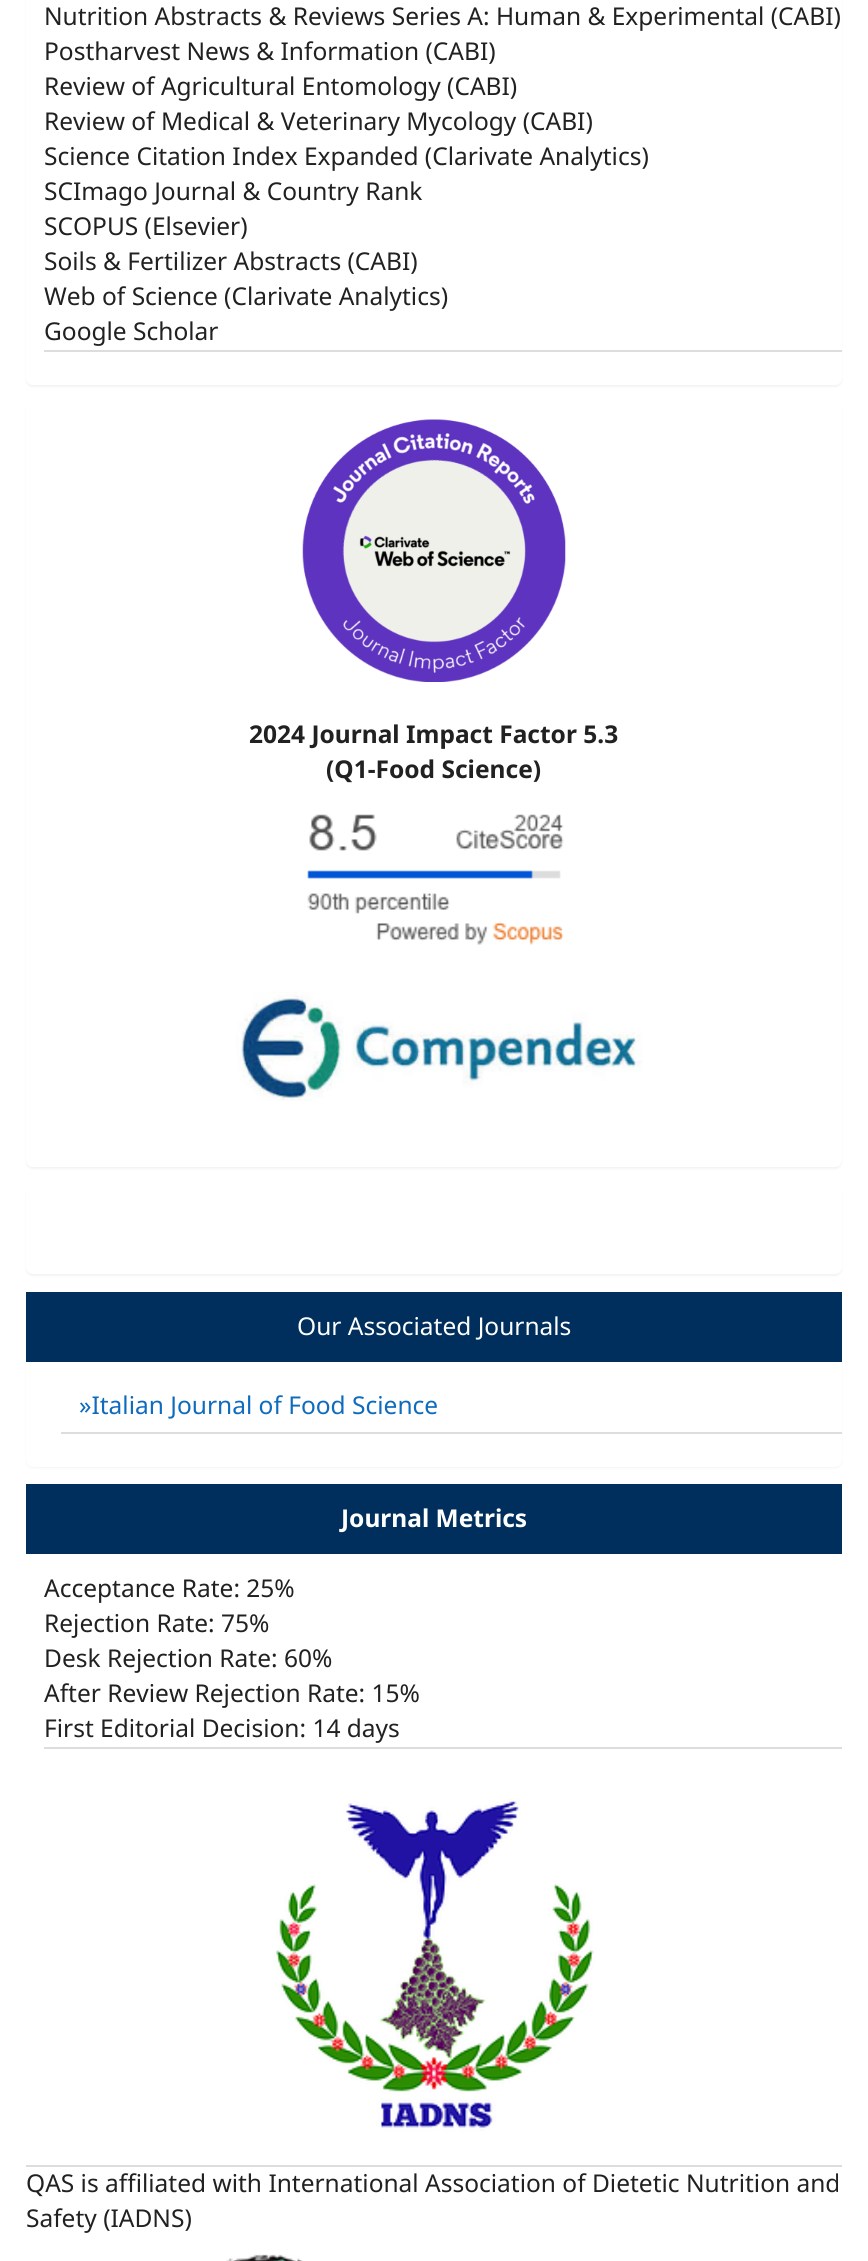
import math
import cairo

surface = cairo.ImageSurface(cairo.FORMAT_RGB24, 868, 2261)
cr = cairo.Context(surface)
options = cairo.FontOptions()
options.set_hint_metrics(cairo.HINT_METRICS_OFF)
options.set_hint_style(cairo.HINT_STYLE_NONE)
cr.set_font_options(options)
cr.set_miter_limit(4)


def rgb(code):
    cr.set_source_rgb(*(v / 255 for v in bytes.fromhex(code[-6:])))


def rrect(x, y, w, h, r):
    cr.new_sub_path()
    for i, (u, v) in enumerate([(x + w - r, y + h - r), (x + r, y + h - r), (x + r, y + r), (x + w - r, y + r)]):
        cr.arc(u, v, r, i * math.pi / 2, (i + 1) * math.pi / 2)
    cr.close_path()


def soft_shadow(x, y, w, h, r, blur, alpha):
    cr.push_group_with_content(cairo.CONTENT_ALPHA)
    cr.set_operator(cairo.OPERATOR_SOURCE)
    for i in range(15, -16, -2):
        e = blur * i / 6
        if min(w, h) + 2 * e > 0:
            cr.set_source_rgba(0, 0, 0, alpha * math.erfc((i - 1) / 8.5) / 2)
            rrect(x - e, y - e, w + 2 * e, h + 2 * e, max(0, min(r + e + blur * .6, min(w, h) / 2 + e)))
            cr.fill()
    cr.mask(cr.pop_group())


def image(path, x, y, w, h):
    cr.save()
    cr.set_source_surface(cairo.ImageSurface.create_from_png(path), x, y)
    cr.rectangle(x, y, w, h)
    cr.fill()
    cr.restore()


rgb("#ffffff")
cr.paint()
rgb("#000000")
soft_shadow(26, -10, 816, 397, 7, 1, 0.05)
rgb("#ffffff")
rrect(26, -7, 816, 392, 7)
cr.fill()
rgb("#dddddd")
cr.rectangle(44, 350, 798, 2)
cr.fill()
rgb("#000000")
soft_shadow(26, 404, 816, 765, 7, 1, 0.05)
rgb("#ffffff")
rrect(26, 403, 816, 764, 7)
cr.fill()
image("img/1.png", 302, 419, 264, 263)
image("img/2.png", 307, 814, 257, 131)
image("img/3.png", 236, 991, 407, 110)
rgb("#000000")
soft_shadow(26, 1187, 816, 89, 7, 1, 0.05)
rgb("#ffffff")
rrect(26, 1185, 816, 89, 7)
cr.fill()
rgb("#000000")
soft_shadow(26, 1293, 816, 175, 7, 1, 0.05)
rgb("#ffffff")
rrect(26, 1292, 816, 175, 7)
cr.fill()
for x, y, w, h, color in [
    (26, 1292, 816, 70, "#002f5d"),
    (61, 1432, 781, 2, "#dddddd"),
    (26, 1484, 816, 70, "#002f5d"),
    (44, 1747, 798, 2, "#dddddd"),
]:
    rgb(color)
    cr.rectangle(x, y, w, h)
    cr.fill()
image("img/4.png", 273, 1799, 323, 332)
cr.rectangle(26, 2165, 816, 2)
cr.fill()
image("img/5.png", 226, 2254, 77, 7)
cr.select_font_face("Noto Sans")
cr.set_font_size(24.5)
rgb("#212121")
for x, y, s in [
    (44, 25, "Nutrition Abstracts & Reviews Series A: Human & Experimental (CABI)"),
    (44, 60, "Postharvest News & Information (CABI)"),
    (44, 95, "Review of Agricultural Entomology (CABI)"),
    (44, 130, "Review of Medical & Veterinary Mycology (CABI)"),
    (44, 165, "Science Citation Index Expanded (Clarivate Analytics)"),
    (44, 200, "SCImago Journal & Country Rank"),
    (44, 235, "SCOPUS (Elsevier)"),
    (44, 270, "Soils & Fertilizer Abstracts (CABI)"),
    (44, 305, "Web of Science (Clarivate Analytics)"),
    (44, 340, "Google Scholar"),
]:
    cr.move_to(x, y)
    cr.show_text(s)
cr.select_font_face("Noto Sans", cairo.FONT_SLANT_NORMAL, cairo.FONT_WEIGHT_BOLD)
cr.move_to(249, 743)
cr.show_text("2024 Journal Impact Factor 5.3")
cr.move_to(326, 778)
cr.show_text("(Q1-Food Science)")
cr.select_font_face("Noto Sans")
rgb("#ffffff")
cr.move_to(297, 1335)
cr.show_text("Our Associated Journals")
rgb("#0e6bbd")
cr.move_to(79, 1414)
cr.show_text("»Italian Journal of Food Science")
cr.select_font_face("Noto Sans", cairo.FONT_SLANT_NORMAL, cairo.FONT_WEIGHT_BOLD)
rgb("#ffffff")
cr.move_to(341, 1527)
cr.show_text("Journal Metrics")
cr.select_font_face("Noto Sans")
rgb("#212121")
for x, y, s in [
    (44, 1597, "Acceptance Rate: 25%"),
    (44, 1632, "Rejection Rate: 75%"),
    (44, 1667, "Desk Rejection Rate: 60%"),
    (44, 1702, "After Review Rejection Rate: 15%"),
    (44, 1737, "First Editorial Decision: 14 days"),
    (26, 2192, "QAS is affiliated with International Association of Dietetic Nutrition and"),
    (26, 2227, "Safety (IADNS)"),
]:
    cr.move_to(x, y)
    cr.show_text(s)
surface.write_to_png("page.png")
